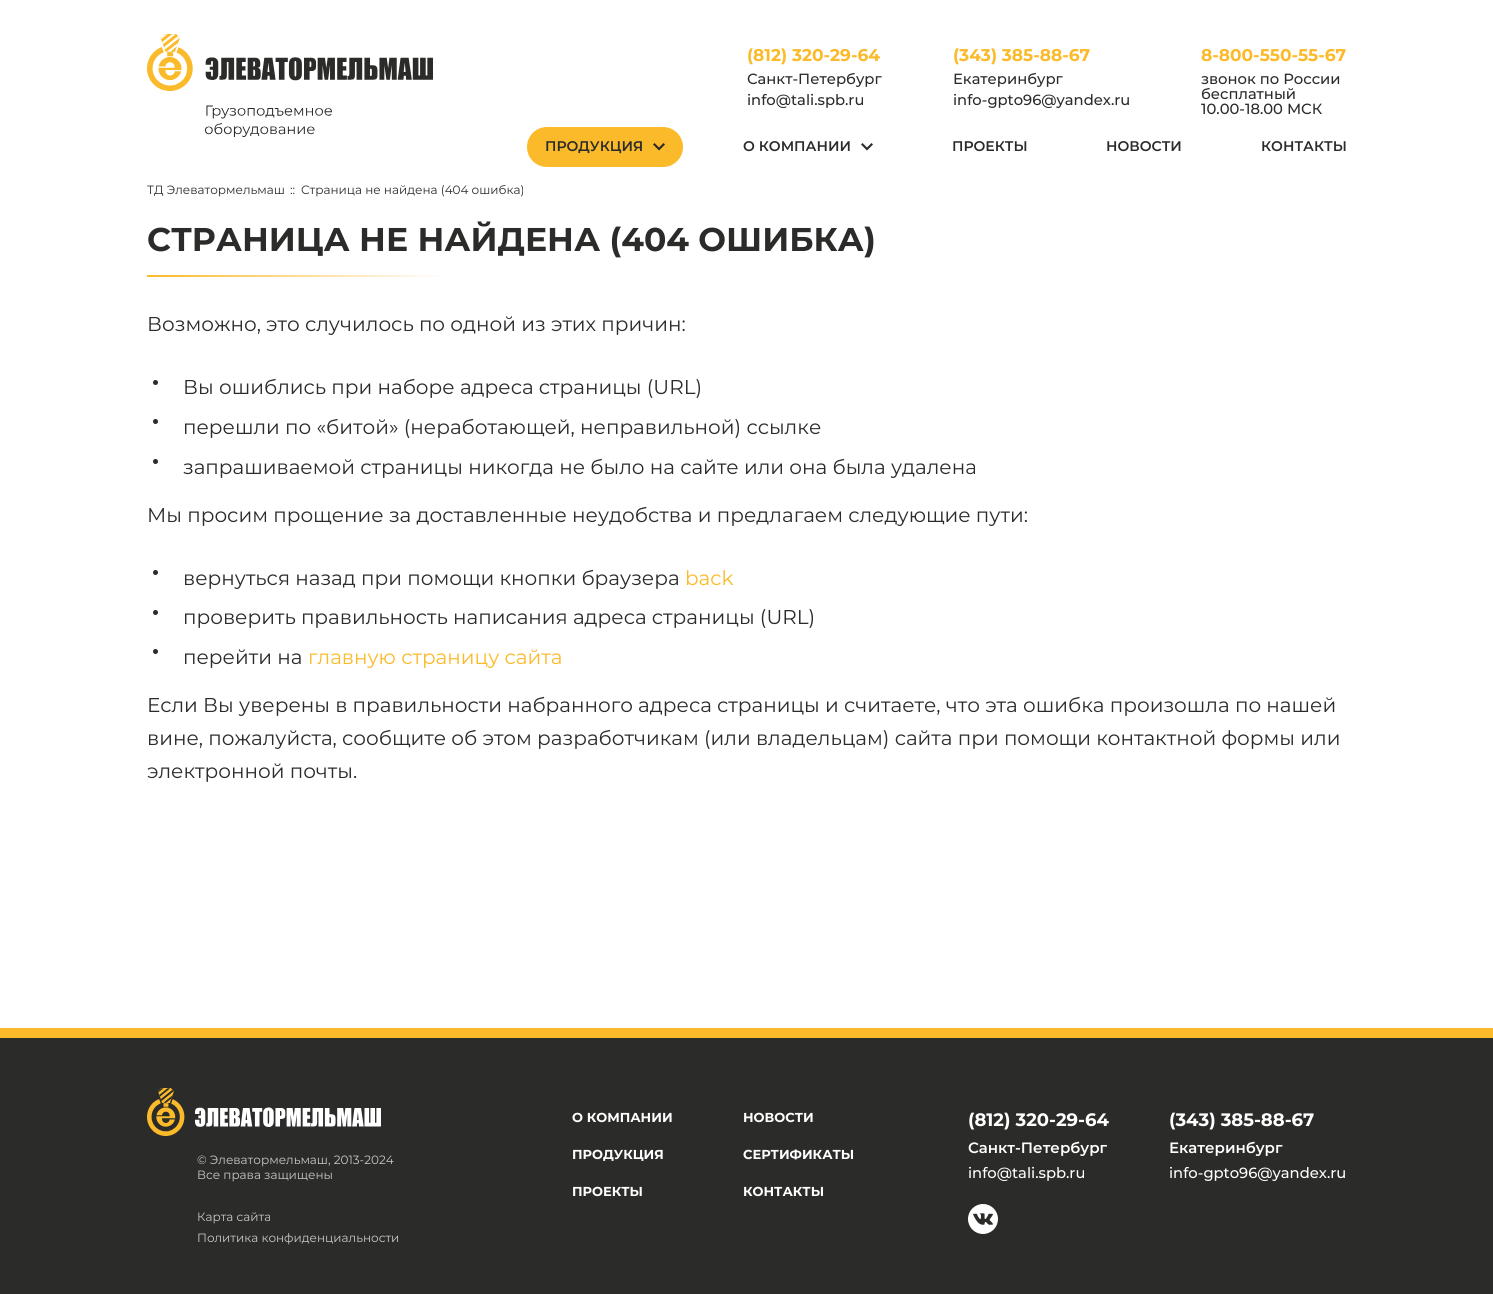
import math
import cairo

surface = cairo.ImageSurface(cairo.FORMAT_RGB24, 1493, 1294)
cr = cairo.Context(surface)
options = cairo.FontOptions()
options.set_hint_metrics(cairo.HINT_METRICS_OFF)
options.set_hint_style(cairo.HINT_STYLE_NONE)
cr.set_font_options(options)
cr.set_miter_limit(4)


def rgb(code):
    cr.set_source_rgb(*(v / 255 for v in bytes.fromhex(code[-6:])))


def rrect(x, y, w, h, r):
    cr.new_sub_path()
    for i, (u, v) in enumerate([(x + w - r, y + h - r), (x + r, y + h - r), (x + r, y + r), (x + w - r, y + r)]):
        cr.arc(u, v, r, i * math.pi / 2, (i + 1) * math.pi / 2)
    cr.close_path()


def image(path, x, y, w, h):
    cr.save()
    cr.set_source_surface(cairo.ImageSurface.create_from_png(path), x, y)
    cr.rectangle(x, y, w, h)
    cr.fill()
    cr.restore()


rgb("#ffffff")
cr.paint()
image("img/1.png", 147, 34, 286, 103)
rgb("#fbba29")
rrect(527, 127, 156, 40, 20)
cr.fill()
image("img/2.png", 653, 143, 12, 8)
image("img/3.png", 861, 143, 12, 8)
gradient = cairo.LinearGradient(147, 276, 447, 276)
gradient.add_color_stop_rgba(0, 0.984, 0.729, 0.161, 1)
gradient.add_color_stop_rgba(1, 1, 1, 1, 1)
cr.set_source(gradient)
cr.rectangle(147, 275, 300, 2)
cr.fill()
rgb("#2b2b2a")
cr.arc(155.5, 382.5, 2.5, 0, 2 * math.pi)
cr.fill()
cr.arc(155.5, 421.5, 2.5, 0, 2 * math.pi)
cr.fill()
cr.arc(155.5, 461.5, 2.5, 0, 2 * math.pi)
cr.fill()
cr.arc(155.5, 572.5, 2.5, 0, 2 * math.pi)
cr.fill()
cr.arc(155.5, 612.5, 2.5, 0, 2 * math.pi)
cr.fill()
cr.arc(155.5, 651.5, 2.5, 0, 2 * math.pi)
cr.fill()
cr.rectangle(0, 1038, 1493, 256)
cr.fill()
rgb("#fbba29")
cr.rectangle(0, 1028, 1493, 10)
cr.fill()
image("img/4.png", 968, 1204, 30, 30)
image("img/5.png", 147, 1088, 234, 48)
cr.select_font_face("Montserrat", cairo.FONT_SLANT_NORMAL, cairo.FONT_WEIGHT_BOLD)
cr.set_font_size(17)
cr.move_to(747, 61)
cr.show_text("(812) 320-29-64")
cr.select_font_face("Montserrat Medium")
cr.set_font_size(14.75)
rgb("#2b2b2a")
cr.move_to(747, 84)
cr.show_text("Санкт-Петербург")
cr.move_to(747, 105)
cr.show_text("info@tali.spb.ru")
cr.select_font_face("Montserrat", cairo.FONT_SLANT_NORMAL, cairo.FONT_WEIGHT_BOLD)
cr.set_font_size(17)
rgb("#fbba29")
cr.move_to(953, 61)
cr.show_text("(343) 385-88-67")
cr.select_font_face("Montserrat Medium")
cr.set_font_size(14.75)
rgb("#2b2b2a")
cr.move_to(953, 84)
cr.show_text("Екатеринбург")
cr.move_to(953, 105)
cr.show_text("info-gpto96@yandex.ru")
cr.select_font_face("Montserrat", cairo.FONT_SLANT_NORMAL, cairo.FONT_WEIGHT_BOLD)
cr.set_font_size(17)
rgb("#fbba29")
cr.move_to(1201, 61)
cr.show_text("8-800-550-55-67")
cr.select_font_face("Montserrat Medium")
cr.set_font_size(14.75)
rgb("#2b2b2a")
for x, y, s in [
    (1201, 84, "звонок по России"),
    (1201, 99, "бесплатный"),
    (1201, 114, "10.00-18.00 МСК"),
]:
    cr.move_to(x, y)
    cr.show_text(s)
cr.select_font_face("Montserrat SemiBold")
cr.set_font_size(14)
for x, y, s in [
    (545, 151, "ПРОДУКЦИЯ"),
    (743, 151, "О КОМПАНИИ"),
    (952, 151, "ПРОЕКТЫ"),
    (1106, 151, "НОВОСТИ"),
    (1261, 151, "КОНТАКТЫ"),
]:
    cr.move_to(x, y)
    cr.show_text(s)
cr.select_font_face("Montserrat")
cr.set_font_size(12)
for x, y, s in [
    (147, 194, "ТД Элеватормельмаш"),
    (290, 194, "::"),
    (301, 194, "Страница не найдена (404 ошибка)"),
]:
    cr.move_to(x, y)
    cr.show_text(s)
cr.select_font_face("Montserrat", cairo.FONT_SLANT_NORMAL, cairo.FONT_WEIGHT_BOLD)
cr.set_font_size(32.9)
cr.move_to(147, 251)
cr.show_text("СТРАНИЦА НЕ НАЙДЕНА (404 ОШИБКА)")
cr.select_font_face("Montserrat")
cr.set_font_size(20)
for x, y, s in [
    (147, 331, "Возможно, это случилось по одной из этих причин:"),
    (183, 394, "Вы ошиблись при наборе адреса страницы (URL)"),
    (183, 434, "перешли по «битой» (неработающей, неправильной) ссылке"),
    (183, 474, "запрашиваемой страницы никогда не было на сайте или она была удалена"),
    (147, 522, "Мы просим прощение за доставленные неудобства и предлагаем следующие пути:"),
    (183, 585, "вернуться назад при помощи кнопки браузера"),
]:
    cr.move_to(x, y)
    cr.show_text(s)
rgb("#fbba29")
cr.move_to(685, 585)
cr.show_text("back")
rgb("#2b2b2a")
cr.move_to(183, 624)
cr.show_text("проверить правильность написания адреса страницы (URL)")
cr.move_to(183, 664)
cr.show_text("перейти на")
rgb("#fbba29")
cr.move_to(308, 664)
cr.show_text("главную страницу сайта")
rgb("#2b2b2a")
for x, y, s in [
    (147, 712, "Если Вы уверены в правильности набранного адреса страницы и считаете, что эта ошибка произошла по нашей"),
    (147, 745, "вине, пожалуйста, сообщите об этом разработчикам (или владельцам) сайта при помощи контактной формы или"),
    (147, 778, "электронной почты."),
]:
    cr.move_to(x, y)
    cr.show_text(s)
cr.select_font_face("Montserrat", cairo.FONT_SLANT_NORMAL, cairo.FONT_WEIGHT_BOLD)
cr.set_font_size(13)
rgb("#ffffff")
for x, y, s in [
    (572, 1122, "О КОМПАНИИ"),
    (743, 1122, "НОВОСТИ"),
    (572, 1159, "ПРОДУКЦИЯ"),
    (743, 1159, "СЕРТИФИКАТЫ"),
    (572, 1196, "ПРОЕКТЫ"),
    (743, 1196, "КОНТАКТЫ"),
]:
    cr.move_to(x, y)
    cr.show_text(s)
cr.set_font_size(18)
cr.move_to(968, 1126)
cr.show_text("(812) 320-29-64")
cr.select_font_face("Montserrat SemiBold")
cr.set_font_size(15)
cr.move_to(968, 1153)
cr.show_text("Санкт-Петербург")
cr.select_font_face("Montserrat Medium")
cr.set_font_size(14.75)
cr.move_to(968, 1178)
cr.show_text("info@tali.spb.ru")
cr.select_font_face("Montserrat", cairo.FONT_SLANT_NORMAL, cairo.FONT_WEIGHT_BOLD)
cr.set_font_size(18)
cr.move_to(1169, 1126)
cr.show_text("(343) 385-88-67")
cr.select_font_face("Montserrat SemiBold")
cr.set_font_size(15)
cr.move_to(1169, 1153)
cr.show_text("Екатеринбург")
cr.select_font_face("Montserrat Medium")
cr.set_font_size(14.75)
cr.move_to(1169, 1178)
cr.show_text("info-gpto96@yandex.ru")
cr.select_font_face("Montserrat")
cr.set_font_size(12)
rgb("#c8c8c8")
for x, y, s in [
    (197, 1164, "© Элеватормельмаш, 2013-2024"),
    (197, 1179, "Все права защищены"),
    (197, 1221, "Карта сайта"),
    (197, 1242, "Политика конфиденциальности"),
]:
    cr.move_to(x, y)
    cr.show_text(s)
surface.write_to_png("page.png")
